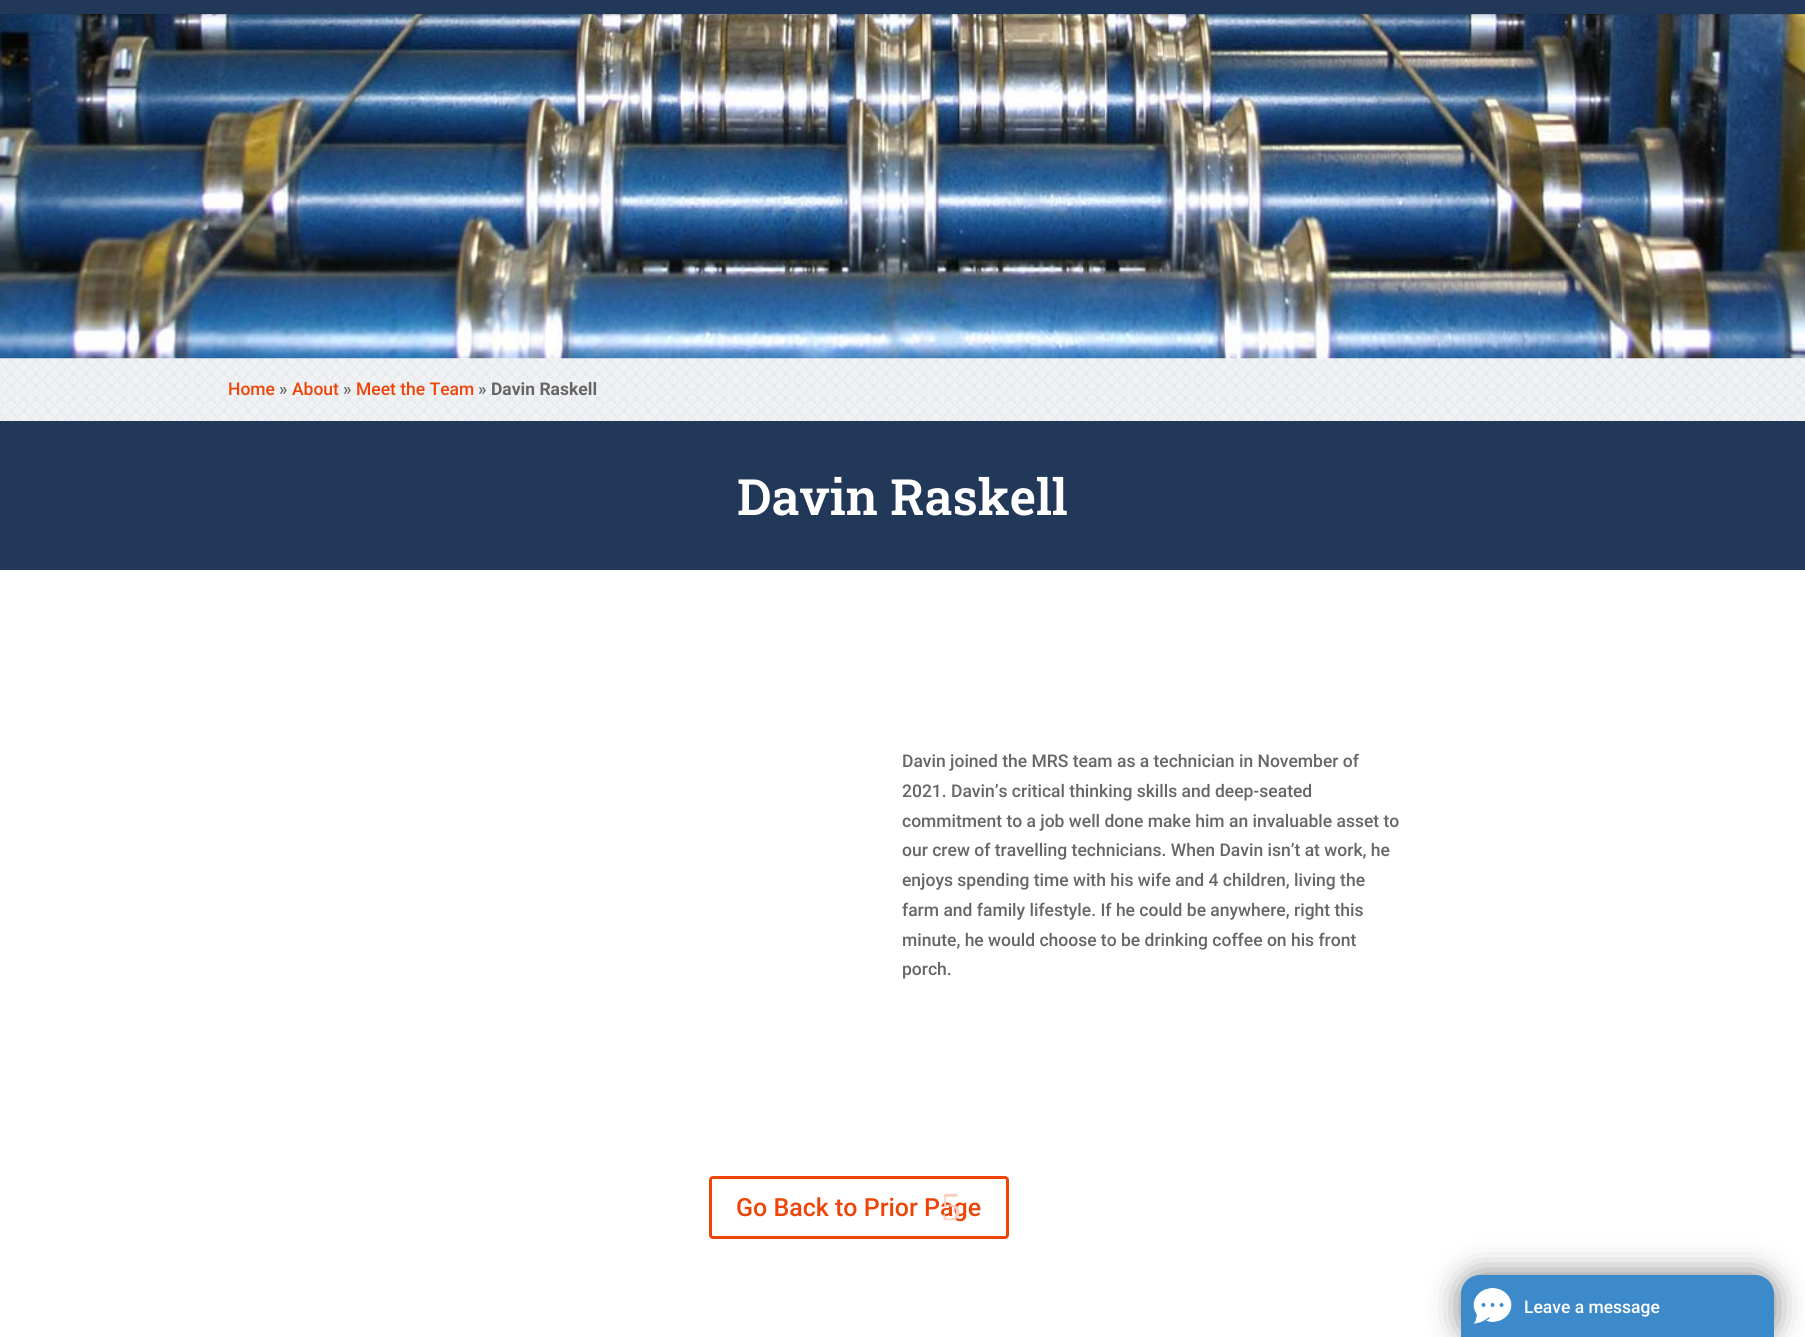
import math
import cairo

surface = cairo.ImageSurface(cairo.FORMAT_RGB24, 1805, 1337)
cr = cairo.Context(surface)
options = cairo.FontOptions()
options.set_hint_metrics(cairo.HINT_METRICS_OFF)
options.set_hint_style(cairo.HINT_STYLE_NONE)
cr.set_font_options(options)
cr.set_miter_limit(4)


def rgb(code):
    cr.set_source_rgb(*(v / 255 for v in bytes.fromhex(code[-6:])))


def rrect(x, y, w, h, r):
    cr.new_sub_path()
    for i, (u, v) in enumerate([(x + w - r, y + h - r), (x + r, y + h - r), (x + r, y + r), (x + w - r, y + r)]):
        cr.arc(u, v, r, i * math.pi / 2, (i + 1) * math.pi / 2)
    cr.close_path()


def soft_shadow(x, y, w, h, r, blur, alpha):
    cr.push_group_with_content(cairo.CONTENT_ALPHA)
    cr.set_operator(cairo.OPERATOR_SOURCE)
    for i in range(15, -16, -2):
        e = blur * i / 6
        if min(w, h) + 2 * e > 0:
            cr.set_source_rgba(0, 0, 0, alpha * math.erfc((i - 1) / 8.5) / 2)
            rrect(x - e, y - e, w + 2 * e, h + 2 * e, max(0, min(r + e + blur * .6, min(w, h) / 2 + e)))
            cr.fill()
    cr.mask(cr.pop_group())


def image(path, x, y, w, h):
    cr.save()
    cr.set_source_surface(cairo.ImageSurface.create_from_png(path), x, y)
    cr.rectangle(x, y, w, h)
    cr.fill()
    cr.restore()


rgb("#ffffff")
cr.paint()
image("img/1.png", 0, 14, 1805, 345)
cr.set_source_rgba(0, 0, 0, 0.1)
cr.rectangle(0, 14, 1805, 1)
cr.fill()
rgb("#223859")
cr.rectangle(0, 0, 1805, 14)
cr.fill()
image("img/2.png", 0, 358, 1805, 63)
cr.rectangle(0, 421, 1805, 149)
cr.fill()
rrect(710.5, 1177.5, 297, 60, 2.5)
rgb("#ed4408")
cr.set_line_width(3)
cr.stroke()
rgb("#7a7a7a")
soft_shadow(1461, 1275, 313, 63, 19, 15.5, 1)
rgb("#3c8ac9")
cr.new_path()
cr.move_to(1480, 1275)
cr.line_to(1755, 1275)
cr.curve_to(1765.5, 1275, 1774, 1283.5, 1774, 1294)
cr.line_to(1774, 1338)
cr.line_to(1461, 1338)
cr.line_to(1461, 1294)
cr.curve_to(1461, 1283.5, 1469.5, 1275, 1480, 1275)
cr.close_path()
cr.fill()
image("img/3.png", 1473, 1288, 39, 36)
cr.select_font_face("Roboto Medium")
cr.set_font_size(17.5)
rgb("#ed4408")
cr.move_to(228, 395)
cr.show_text("Home")
rgb("#666666")
cr.move_to(279, 395)
cr.show_text("»")
rgb("#ed4408")
cr.move_to(292, 395)
cr.show_text("About")
rgb("#666666")
cr.move_to(343, 395)
cr.show_text("»")
rgb("#ed4408")
cr.move_to(356, 395)
cr.show_text("Meet the Team")
rgb("#666666")
cr.move_to(478, 395)
cr.show_text("»")
cr.select_font_face("Roboto", cairo.FONT_SLANT_NORMAL, cairo.FONT_WEIGHT_BOLD)
cr.move_to(491, 395)
cr.show_text("Davin Raskell")
cr.select_font_face("Roboto Slab SemiBold")
cr.set_font_size(50)
rgb("#ffffff")
cr.move_to(737, 515)
cr.show_text("Davin Raskell")
cr.select_font_face("Roboto Medium")
cr.set_font_size(17.5)
rgb("#666666")
for x, y, s in [
    (902, 767, "Davin joined the MRS team as a technician in November of"),
    (902, 797, "2021. Davin’s critical thinking skills and deep-seated"),
    (902, 827, "commitment to a job well done make him an invaluable asset to"),
    (902, 856, "our crew of travelling technicians. When Davin isn’t at work, he"),
    (902, 886, "enjoys spending time with his wife and 4 children, living the"),
    (902, 916, "farm and family lifestyle. If he could be anywhere, right this"),
    (902, 946, "minute, he would choose to be drinking coffee on his front"),
    (902, 975, "porch."),
]:
    cr.move_to(x, y)
    cr.show_text(s)
cr.set_font_size(25)
rgb("#ed4408")
cr.move_to(736, 1216)
cr.show_text("Go Back to Prior Page")
cr.select_font_face("Liberation Serif")
cr.set_font_size(40)
rgb("#facebe")
cr.move_to(941, 1220)
cr.show_text("5")
cr.select_font_face("Roboto Medium")
cr.set_font_size(17.5)
rgb("#ffffff")
cr.move_to(1524, 1313)
cr.show_text("Leave a message")
surface.write_to_png("page.png")
